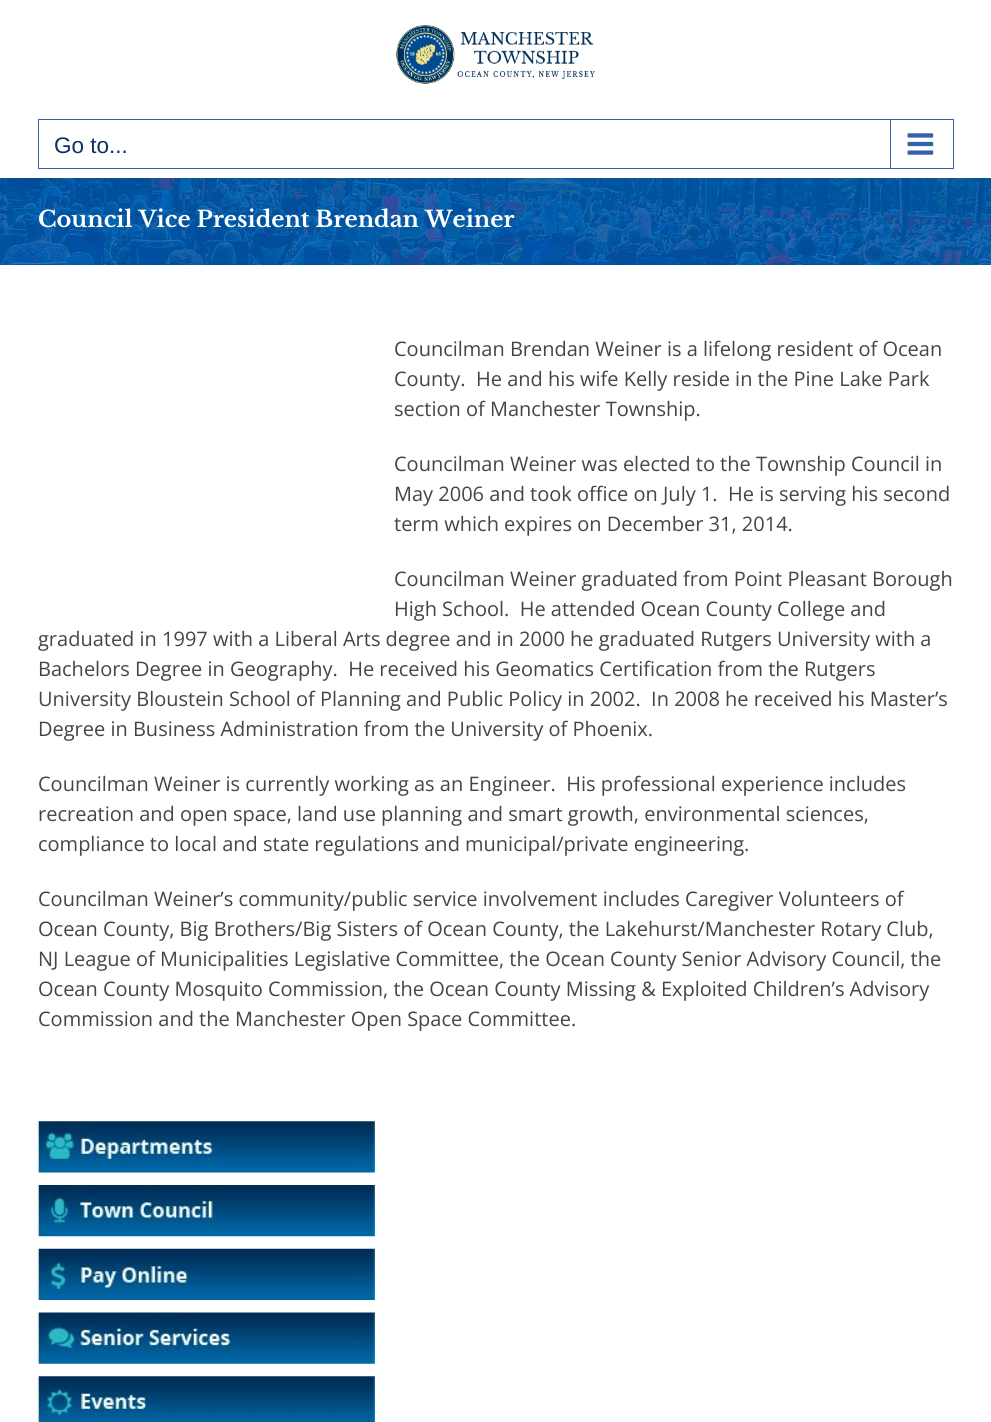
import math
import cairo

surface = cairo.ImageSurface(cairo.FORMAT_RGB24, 991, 1422)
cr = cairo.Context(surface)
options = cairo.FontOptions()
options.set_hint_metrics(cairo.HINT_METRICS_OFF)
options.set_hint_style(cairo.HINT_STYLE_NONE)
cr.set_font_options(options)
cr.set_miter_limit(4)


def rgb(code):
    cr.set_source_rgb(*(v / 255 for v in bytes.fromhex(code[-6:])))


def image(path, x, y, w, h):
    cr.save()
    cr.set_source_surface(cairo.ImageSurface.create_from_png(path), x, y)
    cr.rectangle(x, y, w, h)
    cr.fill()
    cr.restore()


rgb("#ffffff")
cr.paint()
image("img/1.png", 396, 25, 199, 59)
cr.rectangle(38.5, 119.5, 915, 49)
rgb("#3561a8")
cr.set_line_width(1)
cr.stroke()
cr.rectangle(890, 120, 1, 48)
cr.fill()
image("img/2.png", 907, 133, 27, 22)
image("img/3.png", 0, 178, 991, 87)
image("img/4.png", 37, 1121, 338, 52)
image("img/5.png", 37, 1185, 338, 52)
image("img/6.png", 37, 1248, 338, 52)
image("img/7.png", 37, 1312, 338, 52)
image("img/8.png", 37, 1376, 338, 46)
cr.select_font_face("Liberation Sans")
cr.set_font_size(22.5)
rgb("#0c3062")
cr.move_to(54, 153)
cr.show_text("Go to...")
cr.select_font_face("Libre Baskerville", cairo.FONT_SLANT_NORMAL, cairo.FONT_WEIGHT_BOLD)
rgb("#ffffff")
cr.move_to(38, 227)
cr.show_text("Council Vice President Brendan Weiner")
cr.select_font_face("Open Sans")
cr.set_font_size(20)
rgb("#454545")
for x, y, s in [
    (394, 356, "Councilman Brendan Weiner is a lifelong resident of Ocean"),
    (394, 386, "County.  He and his wife Kelly reside in the Pine Lake Park"),
    (394, 416, "section of Manchester Township."),
    (394, 471, "Councilman Weiner was elected to the Township Council in"),
    (394, 501, "May 2006 and took office on July 1.  He is serving his second"),
    (394, 531, "term which expires on December 31, 2014."),
    (394, 586, "Councilman Weiner graduated from Point Pleasant Borough"),
    (394, 616, "High School.  He attended Ocean County College and"),
    (38, 646, "graduated in 1997 with a Liberal Arts degree and in 2000 he graduated Rutgers University with a"),
    (38, 676, "Bachelors Degree in Geography.  He received his Geomatics Certification from the Rutgers"),
    (38, 706, "University Bloustein School of Planning and Public Policy in 2002.  In 2008 he received his Master’s"),
    (38, 736, "Degree in Business Administration from the University of Phoenix."),
    (38, 791, "Councilman Weiner is currently working as an Engineer.  His professional experience includes"),
    (38, 821, "recreation and open space, land use planning and smart growth, environmental sciences,"),
    (38, 851, "compliance to local and state regulations and municipal/private engineering."),
    (38, 906, "Councilman Weiner’s community/public service involvement includes Caregiver Volunteers of"),
    (38, 936, "Ocean County, Big Brothers/Big Sisters of Ocean County, the Lakehurst/Manchester Rotary Club,"),
    (38, 966, "NJ League of Municipalities Legislative Committee, the Ocean County Senior Advisory Council, the"),
    (38, 996, "Ocean County Mosquito Commission, the Ocean County Missing & Exploited Children’s Advisory"),
    (38, 1026, "Commission and the Manchester Open Space Committee."),
]:
    cr.move_to(x, y)
    cr.show_text(s)
surface.write_to_png("page.png")
